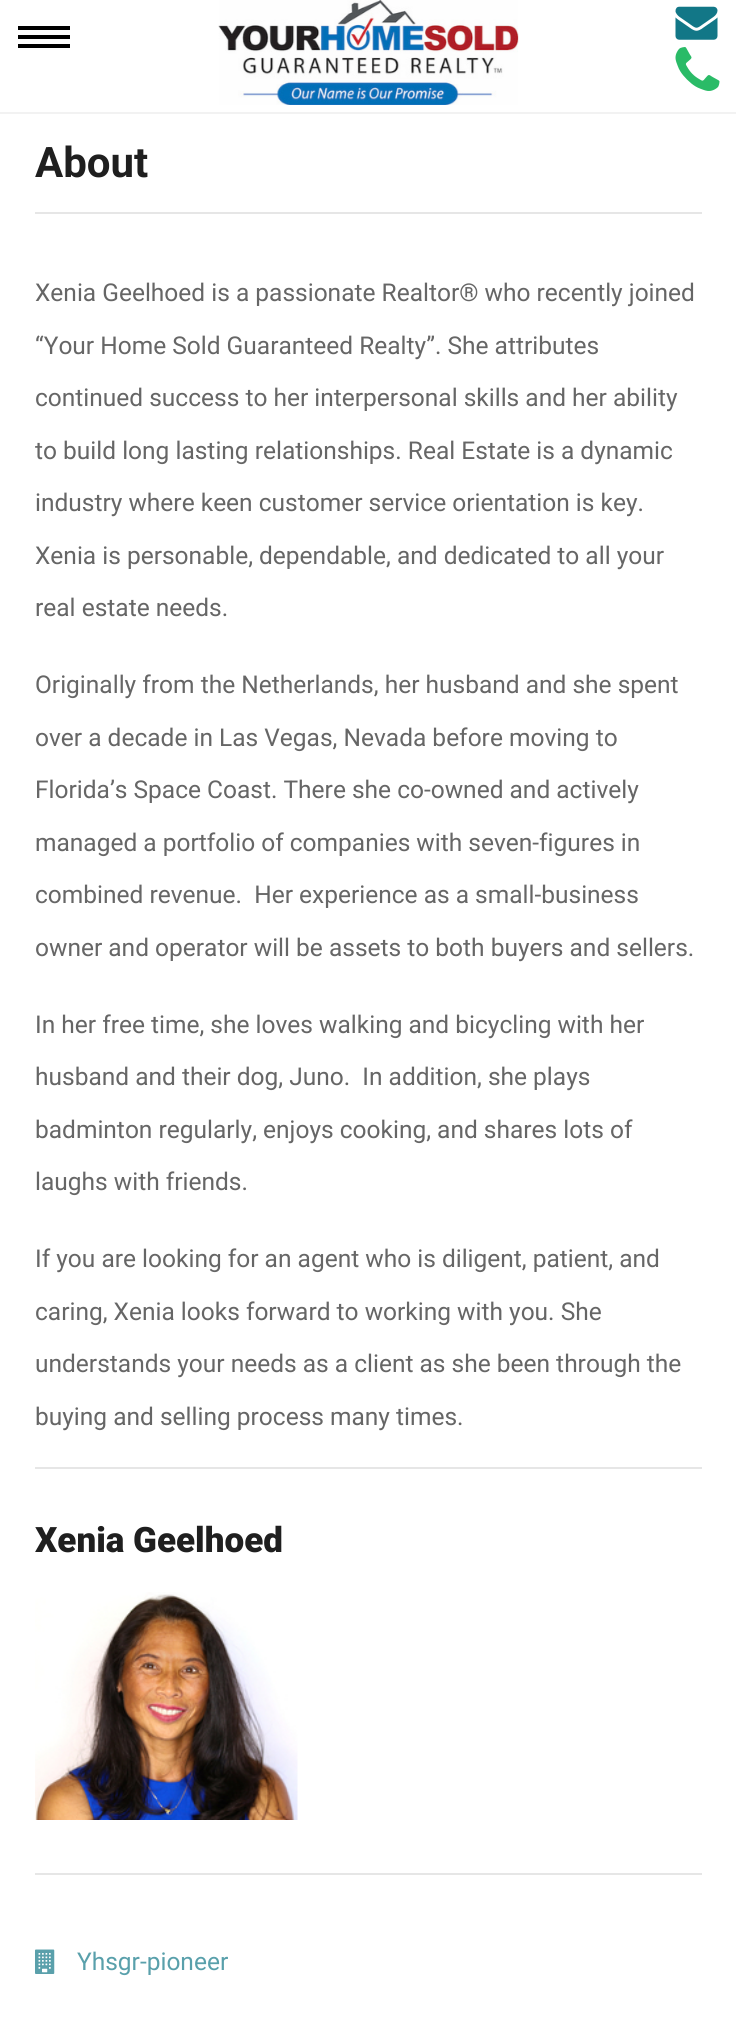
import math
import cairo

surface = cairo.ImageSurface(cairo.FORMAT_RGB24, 736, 2023)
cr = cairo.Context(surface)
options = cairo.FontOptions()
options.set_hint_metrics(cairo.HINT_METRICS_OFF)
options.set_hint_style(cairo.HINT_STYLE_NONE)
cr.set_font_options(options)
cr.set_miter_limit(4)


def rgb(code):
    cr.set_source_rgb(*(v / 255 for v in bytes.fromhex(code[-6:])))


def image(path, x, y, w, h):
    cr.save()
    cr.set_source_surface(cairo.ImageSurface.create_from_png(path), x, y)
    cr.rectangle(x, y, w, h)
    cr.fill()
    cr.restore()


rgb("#ffffff")
cr.paint()
rgb("#f2f2f2")
cr.rectangle(0, 112, 736, 2)
cr.fill()
image("img/1.png", 218, 0, 301, 105)
for x, y, w, h, color in [
    (18, 26, 52, 4, "#000000"),
    (18, 35, 52, 4, "#000000"),
    (18, 44, 52, 4, "#000000"),
]:
    rgb(color)
    cr.rectangle(x, y, w, h)
    cr.fill()
image("img/2.png", 675, 6, 43, 34)
image("img/3.png", 675, 47, 45, 44)
rgb("#e6e6e6")
cr.rectangle(35, 212, 667, 2)
cr.fill()
cr.rectangle(35, 1467, 667, 2)
cr.fill()
image("img/4.png", 35, 1592, 263, 228)
cr.rectangle(35, 1873, 667, 2)
cr.fill()
image("img/5.png", 35, 1949, 20, 25)
cr.select_font_face("Roboto", cairo.FONT_SLANT_NORMAL, cairo.FONT_WEIGHT_BOLD)
cr.set_font_size(42)
rgb("#1f1f1f")
cr.move_to(35, 177)
cr.show_text("About")
cr.select_font_face("Roboto")
cr.set_font_size(24.5)
rgb("#666666")
for x, y, s in [
    (35, 301, "Xenia Geelhoed is a passionate Realtor® who recently joined"),
    (35, 354, "“Your Home Sold Guaranteed Realty”. She attributes"),
    (35, 406, "continued success to her interpersonal skills and her ability"),
    (35, 459, "to build long lasting relationships. Real Estate is a dynamic"),
    (35, 511, "industry where keen customer service orientation is key."),
    (35, 564, "Xenia is personable, dependable, and dedicated to all your"),
    (35, 616, "real estate needs."),
    (35, 693, "Originally from the Netherlands, her husband and she spent"),
    (35, 746, "over a decade in Las Vegas, Nevada before moving to"),
    (35, 798, "Florida’s Space Coast. There she co-owned and actively"),
    (35, 851, "managed a portfolio of companies with seven-figures in"),
    (35, 903, "combined revenue.  Her experience as a small-business"),
    (35, 956, "owner and operator will be assets to both buyers and sellers."),
    (35, 1033, "In her free time, she loves walking and bicycling with her"),
    (35, 1085, "husband and their dog, Juno.  In addition, she plays"),
    (35, 1138, "badminton regularly, enjoys cooking, and shares lots of"),
    (35, 1190, "laughs with friends."),
    (35, 1267, "If you are looking for an agent who is diligent, patient, and"),
    (35, 1320, "caring, Xenia looks forward to working with you. She"),
    (35, 1372, "understands your needs as a client as she been through the"),
    (35, 1425, "buying and selling process many times."),
]:
    cr.move_to(x, y)
    cr.show_text(s)
cr.select_font_face("Roboto Black")
cr.set_font_size(35)
rgb("#1f1f1f")
cr.move_to(35, 1552)
cr.show_text("Xenia Geelhoed")
cr.select_font_face("Roboto")
cr.set_font_size(24.5)
rgb("#59a0ab")
cr.move_to(77, 1970)
cr.show_text("Yhsgr-pioneer")
surface.write_to_png("page.png")
